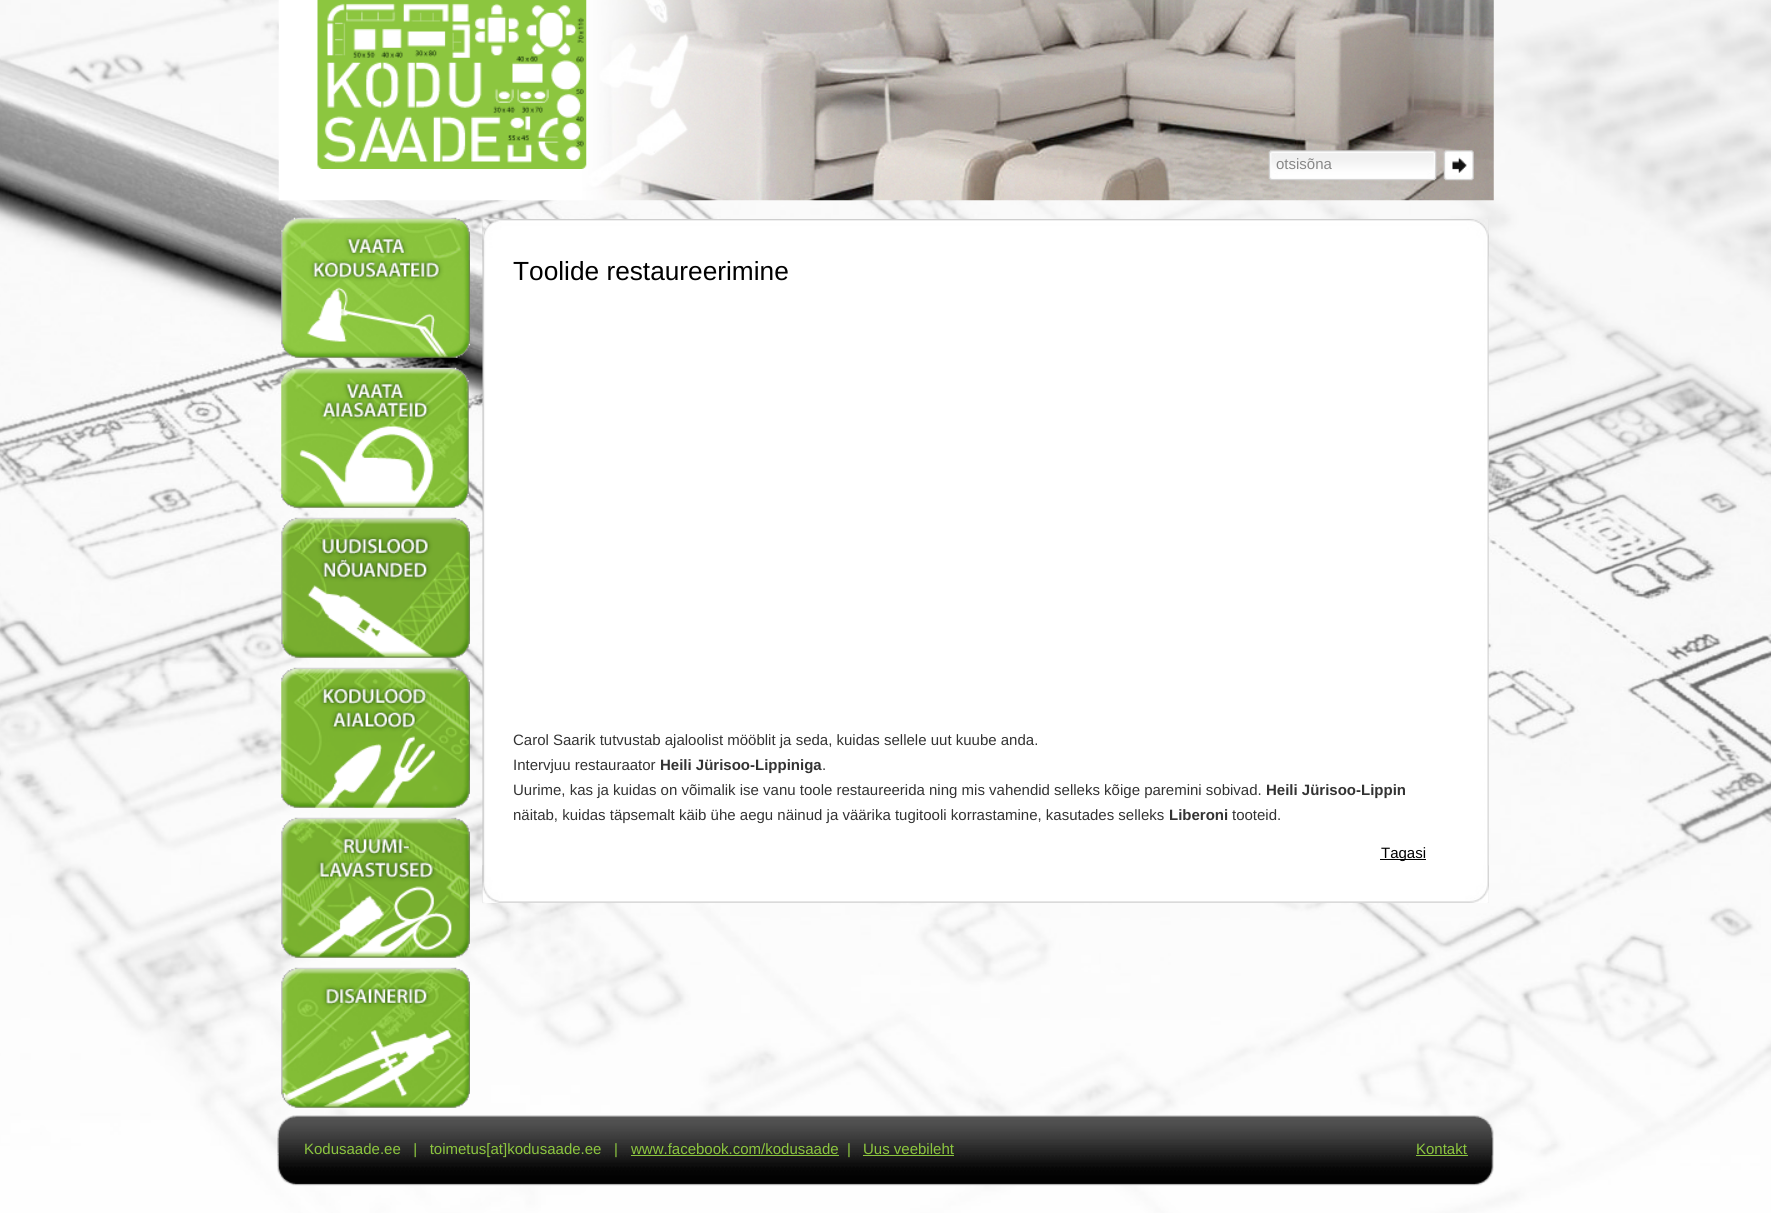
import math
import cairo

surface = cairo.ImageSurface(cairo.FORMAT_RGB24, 1771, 1213)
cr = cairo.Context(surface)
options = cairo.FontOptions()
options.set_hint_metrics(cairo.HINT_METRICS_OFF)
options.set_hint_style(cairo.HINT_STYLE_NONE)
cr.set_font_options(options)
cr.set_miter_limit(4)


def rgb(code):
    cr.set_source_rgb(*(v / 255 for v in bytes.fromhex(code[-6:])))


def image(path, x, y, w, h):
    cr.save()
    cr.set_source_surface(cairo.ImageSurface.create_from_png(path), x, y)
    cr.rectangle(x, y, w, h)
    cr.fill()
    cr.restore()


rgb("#ffffff")
cr.paint()
image("img/1.png", 0, 0, 1771, 1213)
image("img/2.png", 278, 0, 1216, 201)
image("img/3.png", 317, 0, 270, 169)
image("img/4.png", 1268, 150, 169, 31)
image("img/5.png", 1443, 150, 31, 31)
image("img/6.png", 281, 217, 189, 141)
image("img/7.png", 281, 367, 188, 141)
image("img/8.png", 281, 517, 189, 141)
image("img/9.png", 281, 667, 189, 141)
image("img/10.png", 281, 817, 189, 141)
image("img/11.png", 281, 967, 189, 141)
image("img/12.png", 482, 219, 1007, 684)
image("img/13.png", 482, 219, 1007, 38)
rgb("#000000")
cr.rectangle(1380, 859, 46, 1)
cr.fill()
image("img/14.png", 482, 865, 1007, 38)
image("img/15.png", 277, 1115, 1217, 71)
for x, y, w, h, color in [
    (631, 1155, 208, 1, "#8cc63f"),
    (863, 1155, 91, 1, "#8cc63f"),
    (1416, 1155, 52, 1, "#8cc63f"),
]:
    rgb(color)
    cr.rectangle(x, y, w, h)
    cr.fill()
cr.select_font_face("Liberation Sans")
cr.set_font_size(15)
rgb("#888888")
cr.move_to(1276, 169)
cr.show_text("otsisõna")
cr.set_font_size(26.25)
rgb("#000000")
cr.move_to(513, 280)
cr.show_text("Toolide restaureerimine")
cr.set_font_size(15)
rgb("#333333")
cr.move_to(513, 745)
cr.show_text("Carol Saarik tutvustab ajaloolist mööblit ja seda, kuidas sellele uut kuube anda.")
cr.move_to(513, 770)
cr.show_text("Intervjuu restauraator")
cr.select_font_face("Liberation Sans", cairo.FONT_SLANT_NORMAL, cairo.FONT_WEIGHT_BOLD)
cr.move_to(660, 770)
cr.show_text("Heili Jürisoo-Lippiniga")
cr.select_font_face("Liberation Sans")
cr.move_to(822, 770)
cr.show_text(".")
cr.move_to(513, 795)
cr.show_text("Uurime, kas ja kuidas on võimalik ise vanu toole restaureerida ning mis vahendid selleks kõige paremini sobivad.")
cr.select_font_face("Liberation Sans", cairo.FONT_SLANT_NORMAL, cairo.FONT_WEIGHT_BOLD)
cr.move_to(1266, 795)
cr.show_text("Heili Jürisoo-Lippin")
cr.select_font_face("Liberation Sans")
cr.move_to(513, 820)
cr.show_text("näitab, kuidas täpsemalt käib ühe aegu näinud ja väärika tugitooli korrastamine, kasutades selleks")
cr.select_font_face("Liberation Sans", cairo.FONT_SLANT_NORMAL, cairo.FONT_WEIGHT_BOLD)
cr.move_to(1169, 820)
cr.show_text("Liberoni")
cr.select_font_face("Liberation Sans")
cr.move_to(1232, 820)
cr.show_text("tooteid.")
rgb("#000000")
cr.move_to(1381, 858)
cr.show_text("Tagasi")
rgb("#8cc63f")
for x, y, s in [
    (304, 1154, "Kodusaade.ee   |   toimetus[at]kodusaade.ee   |"),
    (631, 1154, "www.facebook.com/kodusaade"),
    (847, 1154, "|"),
    (863, 1154, "Uus veebileht"),
    (1416, 1154, "Kontakt"),
]:
    cr.move_to(x, y)
    cr.show_text(s)
surface.write_to_png("page.png")
